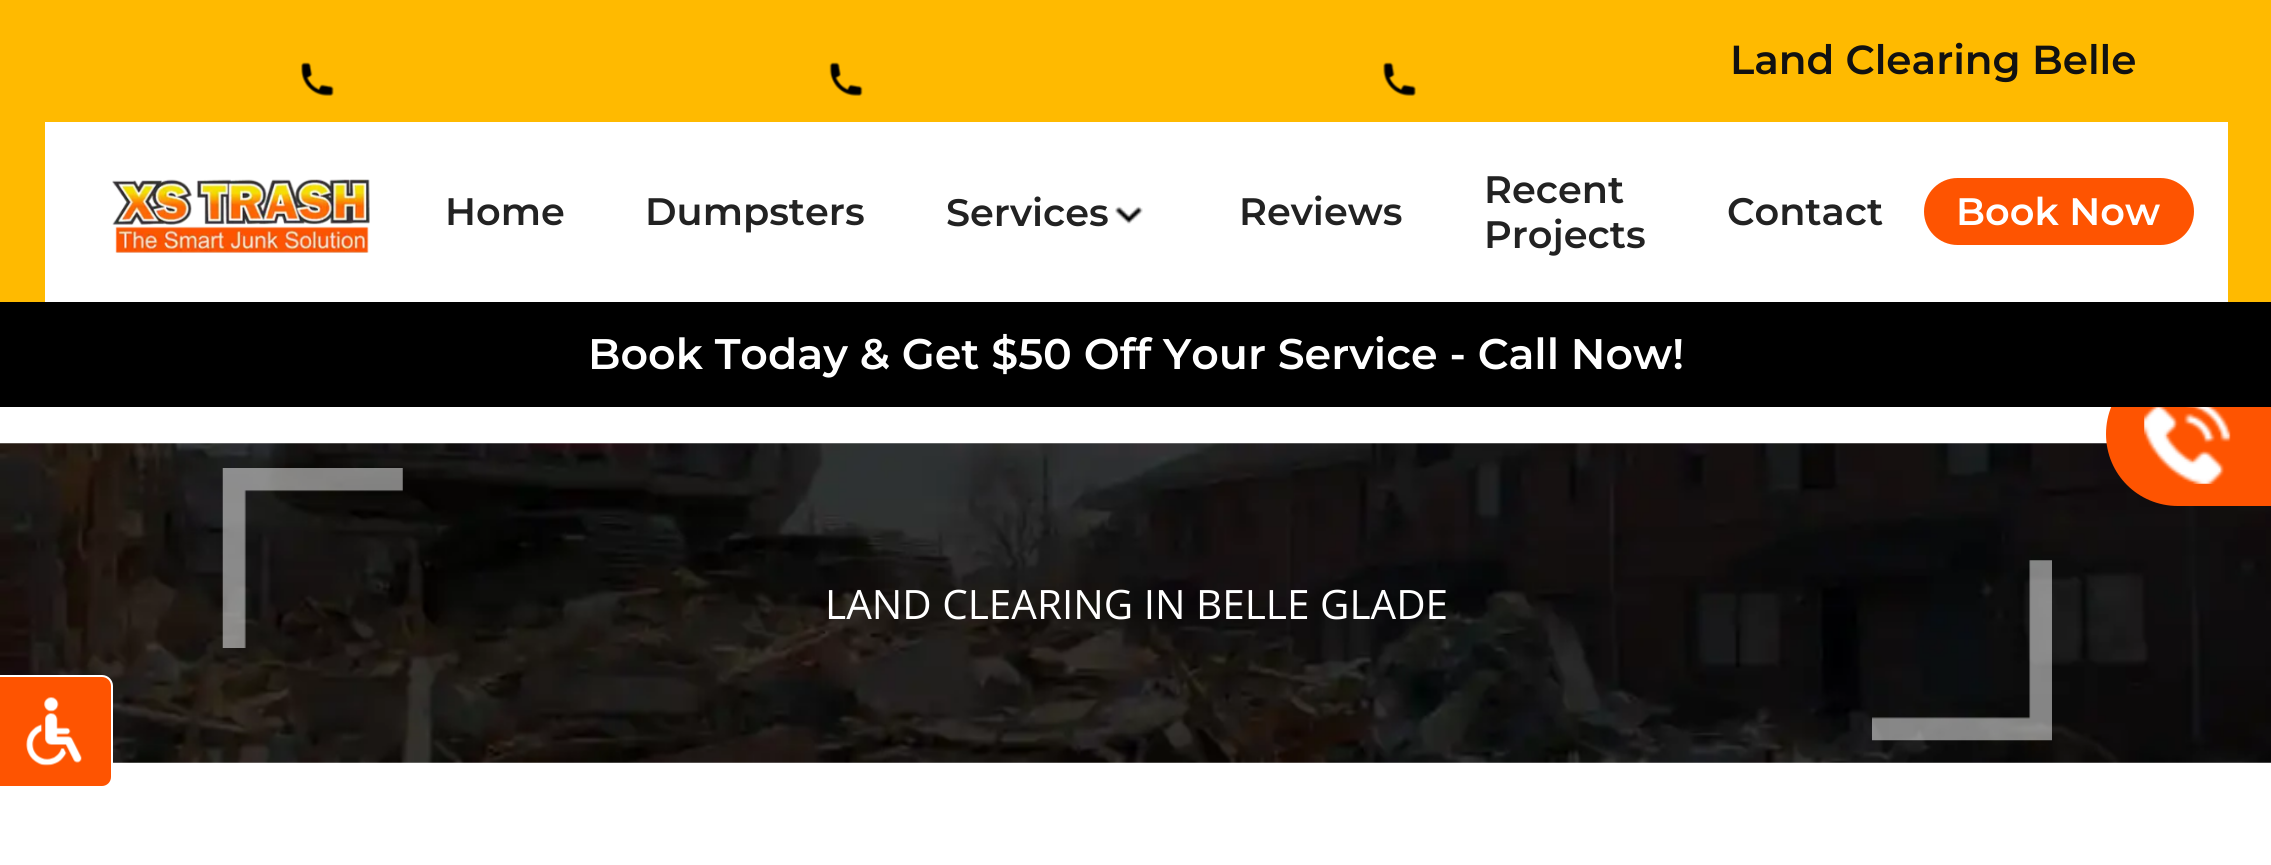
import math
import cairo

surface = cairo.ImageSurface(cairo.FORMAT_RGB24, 2271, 865)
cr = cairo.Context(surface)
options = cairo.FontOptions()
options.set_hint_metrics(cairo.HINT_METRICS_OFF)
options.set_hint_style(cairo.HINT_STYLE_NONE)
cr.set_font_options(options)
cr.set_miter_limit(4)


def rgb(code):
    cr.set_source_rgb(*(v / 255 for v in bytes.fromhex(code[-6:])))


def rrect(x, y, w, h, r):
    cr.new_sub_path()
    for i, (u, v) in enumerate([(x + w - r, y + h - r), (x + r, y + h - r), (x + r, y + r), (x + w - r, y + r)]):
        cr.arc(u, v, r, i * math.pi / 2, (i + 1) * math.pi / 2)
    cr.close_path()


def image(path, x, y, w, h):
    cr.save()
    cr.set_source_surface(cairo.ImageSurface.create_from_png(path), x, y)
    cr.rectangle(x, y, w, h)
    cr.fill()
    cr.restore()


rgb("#ffffff")
cr.paint()
rgb("#ffba00")
cr.rectangle(0, 0, 2271, 302)
cr.fill()
image("img/1.png", 301, 62, 33, 34)
image("img/2.png", 829, 62, 34, 34)
image("img/3.png", 1383, 62, 33, 34)
rgb("#ffffff")
cr.rectangle(45, 122, 2183, 180)
cr.fill()
image("img/4.png", 112, 179, 258, 74)
image("img/5.png", 1115, 206, 28, 18)
rgb("#fe5401")
rrect(1924, 178, 270, 67, 33.5)
cr.fill()
image("img/7.png", 0, 443, 2271, 320)
cr.new_path()
cr.move_to(2178, 362)
cr.line_to(2268, 362)
cr.line_to(2268, 506)
cr.line_to(2178, 506)
cr.curve_to(2138, 506, 2106, 474, 2106, 434)
cr.curve_to(2106, 394, 2138, 362, 2178, 362)
cr.close_path()
cr.fill()
rgb("#000000")
cr.rectangle(0, 302, 2271, 105)
cr.fill()
image("img/6.png", 2144, 407, 87, 77)
rgb("#fe5401")
cr.rectangle(2268, 407, 3, 99)
cr.fill()
image("img/8.png", 222, 468, 181, 180)
image("img/9.png", 1872, 560, 180, 181)
cr.new_path()
cr.move_to(-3, 676)
cr.line_to(102, 676)
cr.curve_to(107.5, 676, 112, 680.5, 112, 686)
cr.line_to(112, 777)
cr.curve_to(112, 782.5, 107.5, 787, 102, 787)
cr.line_to(-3, 787)
cr.close_path()
cr.fill_preserve()
rgb("#ffffff")
cr.stroke()
image("img/10.png", 26, 697, 56, 69)
cr.select_font_face("Montserrat SemiBold")
cr.set_font_size(40.5)
rgb("#111111")
cr.move_to(1730, 74)
cr.show_text("Land Clearing Belle")
cr.set_font_size(38.25)
rgb("#222222")
for x, y, s in [
    (445, 225, "Home"),
    (645, 225, "Dumpsters"),
    (946, 226, "Services"),
    (1239, 225, "Reviews"),
    (1484, 203, "Recent"),
    (1484, 248, "Projects"),
    (1727, 225, "Contact"),
]:
    cr.move_to(x, y)
    cr.show_text(s)
rgb("#ffffff")
cr.move_to(1956, 225)
cr.show_text("Book Now")
cr.set_font_size(42.75)
cr.move_to(588, 369)
cr.show_text("Book Today & Get $50 Off Your Service - Call Now!")
cr.select_font_face("Open Sans")
cr.set_font_size(40.5)
cr.move_to(825, 619)
cr.show_text("LAND CLEARING IN BELLE GLADE")
surface.write_to_png("page.png")
